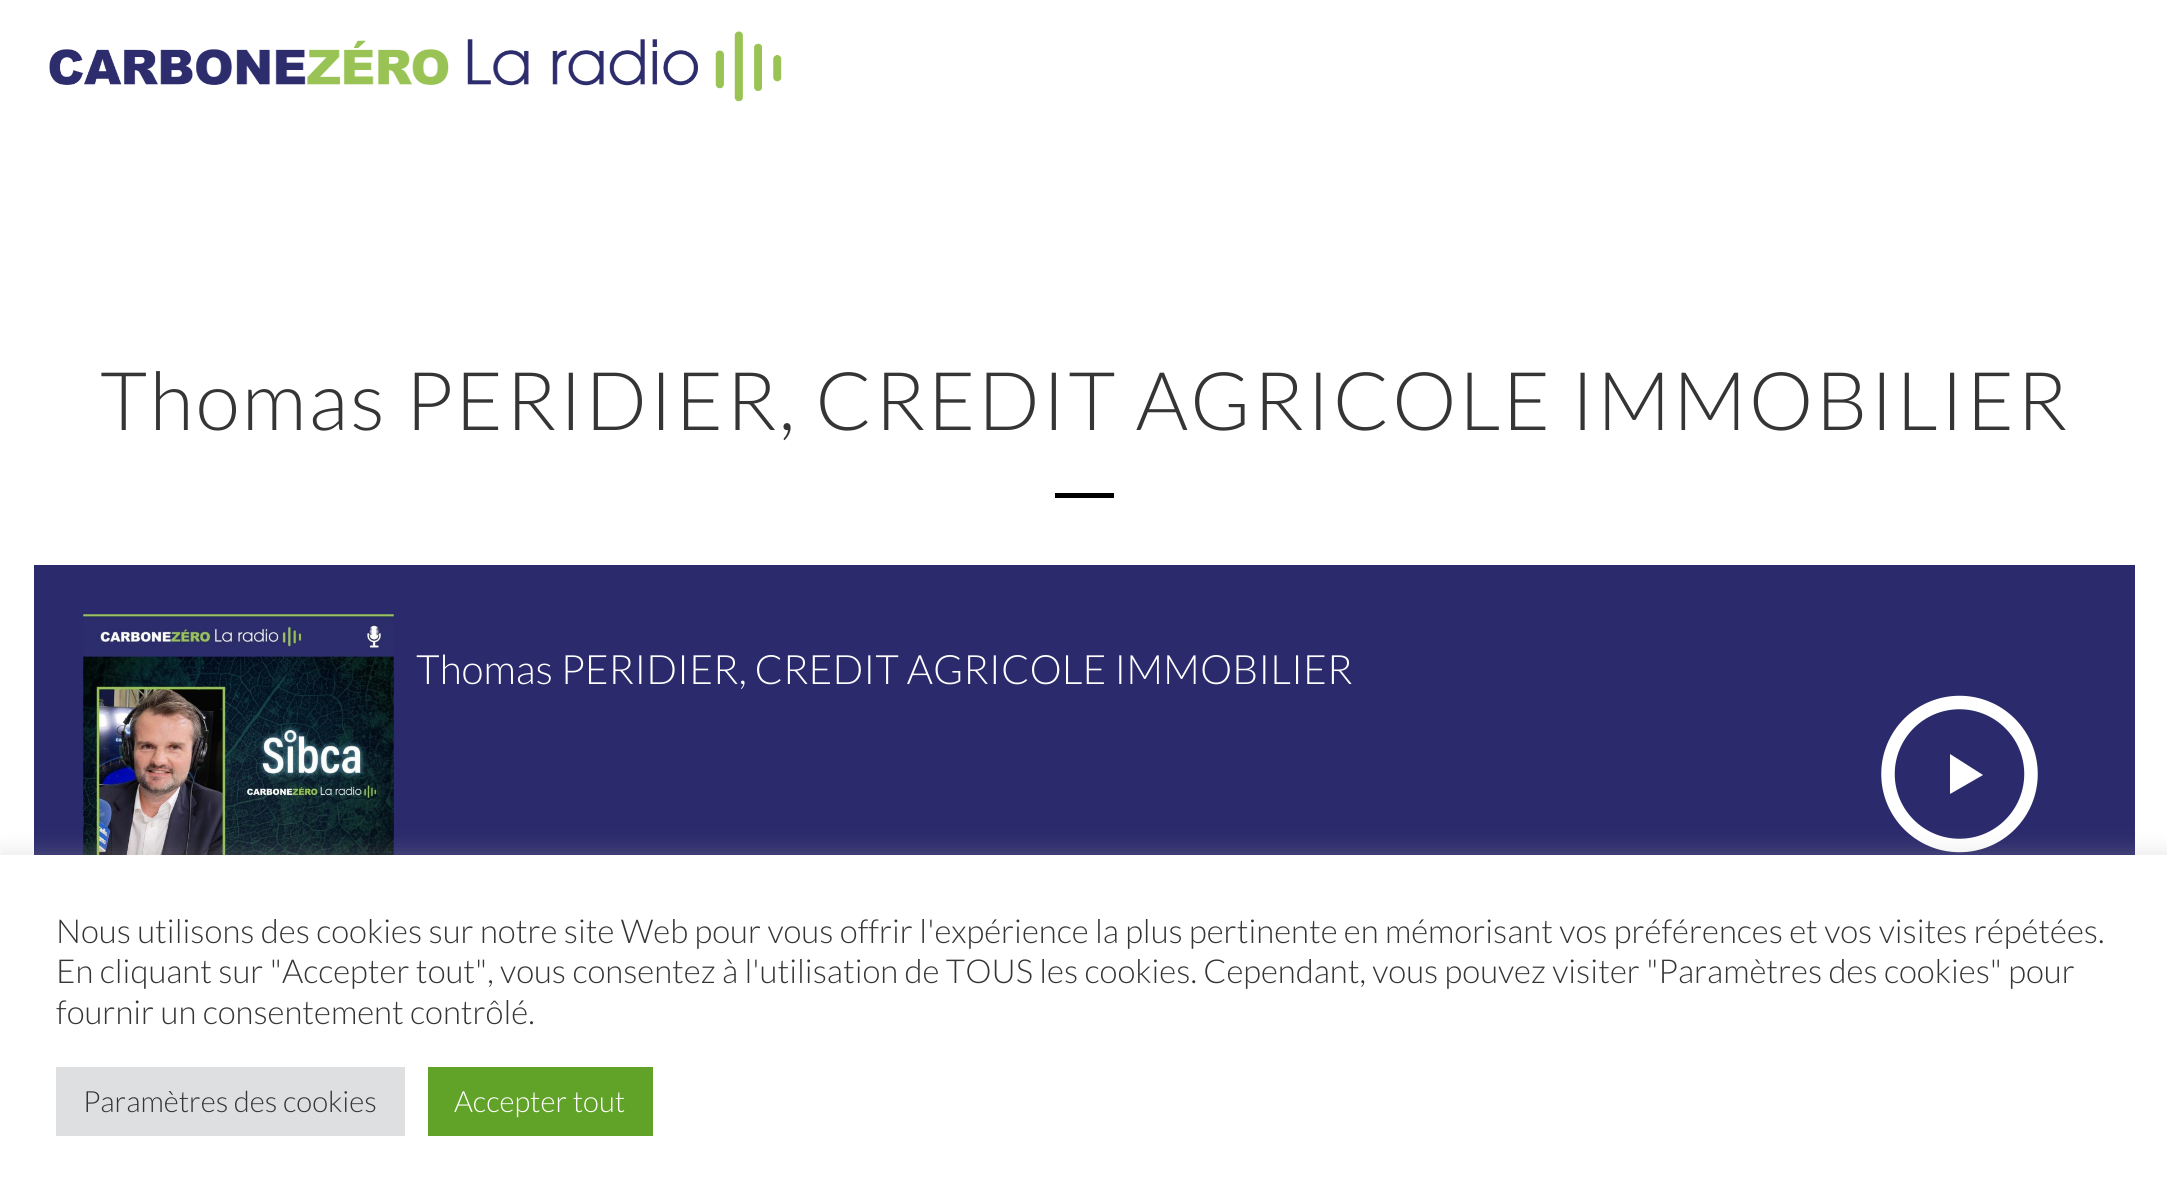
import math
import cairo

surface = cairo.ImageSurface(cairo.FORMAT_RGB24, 2167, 1202)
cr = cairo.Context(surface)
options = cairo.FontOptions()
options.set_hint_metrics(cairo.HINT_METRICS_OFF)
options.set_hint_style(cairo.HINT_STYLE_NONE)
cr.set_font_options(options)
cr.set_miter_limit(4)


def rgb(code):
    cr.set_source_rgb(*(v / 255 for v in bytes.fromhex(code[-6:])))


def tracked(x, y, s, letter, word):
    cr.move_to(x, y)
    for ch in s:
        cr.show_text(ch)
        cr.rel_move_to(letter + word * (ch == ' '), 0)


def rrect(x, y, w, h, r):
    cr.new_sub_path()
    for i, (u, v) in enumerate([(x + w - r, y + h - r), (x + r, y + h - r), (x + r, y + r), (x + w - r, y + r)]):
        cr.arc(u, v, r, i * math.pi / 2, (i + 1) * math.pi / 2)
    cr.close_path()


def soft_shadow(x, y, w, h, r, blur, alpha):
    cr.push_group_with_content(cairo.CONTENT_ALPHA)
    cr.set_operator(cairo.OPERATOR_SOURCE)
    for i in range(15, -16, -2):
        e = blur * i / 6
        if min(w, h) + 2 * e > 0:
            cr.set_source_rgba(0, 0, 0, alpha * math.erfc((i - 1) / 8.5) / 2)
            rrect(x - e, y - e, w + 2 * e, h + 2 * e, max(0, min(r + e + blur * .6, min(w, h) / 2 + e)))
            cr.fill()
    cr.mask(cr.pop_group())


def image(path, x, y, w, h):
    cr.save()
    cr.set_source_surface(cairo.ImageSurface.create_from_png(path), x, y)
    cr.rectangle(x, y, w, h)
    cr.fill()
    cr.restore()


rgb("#ffffff")
cr.paint()
image("img/1.png", 49, 31, 733, 71)
rgb("#000000")
cr.rectangle(1055, 493, 59, 5)
cr.fill()
rgb("#2b2a6c")
cr.rectangle(34, 565, 2101, 290)
cr.fill()
image("img/2.png", 83, 614, 311, 241)
cr.arc(1959.5, 774, 71.5, 0, 2 * math.pi)
rgb("#ffffff")
cr.set_line_width(13.5)
cr.stroke()
cr.new_path()
cr.move_to(1950, 754)
cr.line_to(1983, 775)
cr.line_to(1950, 794)
cr.close_path()
cr.fill()
rgb("#acabab")
soft_shadow(0, 853, 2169, 349, 0, 11, 0.3)
for x, y, w, h, color in [
    (0, 855, 2167, 347, "#ffffff"),
    (56, 1067, 349, 69, "#dedfe0"),
    (428, 1067, 225, 69, "#61a229"),
]:
    rgb(color)
    cr.rectangle(x, y, w, h)
    cr.fill()
cr.select_font_face("Lato Light")
cr.set_font_size(81)
rgb("#353535")
tracked(100, 430, "Thomas PERIDIER, CREDIT AGRICOLE IMMOBILIER", 2.25, 0)
cr.set_font_size(40.5)
rgb("#ffffff")
cr.move_to(416, 684)
cr.show_text("Thomas PERIDIER, CREDIT AGRICOLE IMMOBILIER")
cr.set_font_size(33)
rgb("#353535")
for x, y, s in [
    (56, 943, "Nous utilisons des cookies sur notre site Web pour vous offrir l'expérience la plus pertinente en mémorisant vos préférences et vos visites répétées."),
    (56, 983, "En cliquant sur \"Accepter tout\", vous consentez à l'utilisation de TOUS les cookies. Cependant, vous pouvez visiter \"Paramètres des cookies\" pour"),
    (56, 1024, "fournir un consentement contrôlé."),
]:
    cr.move_to(x, y)
    cr.show_text(s)
cr.set_font_size(29.25)
cr.move_to(83, 1112)
cr.show_text("Paramètres des cookies")
rgb("#ffffff")
cr.move_to(454, 1112)
cr.show_text("Accepter tout")
surface.write_to_png("page.png")
